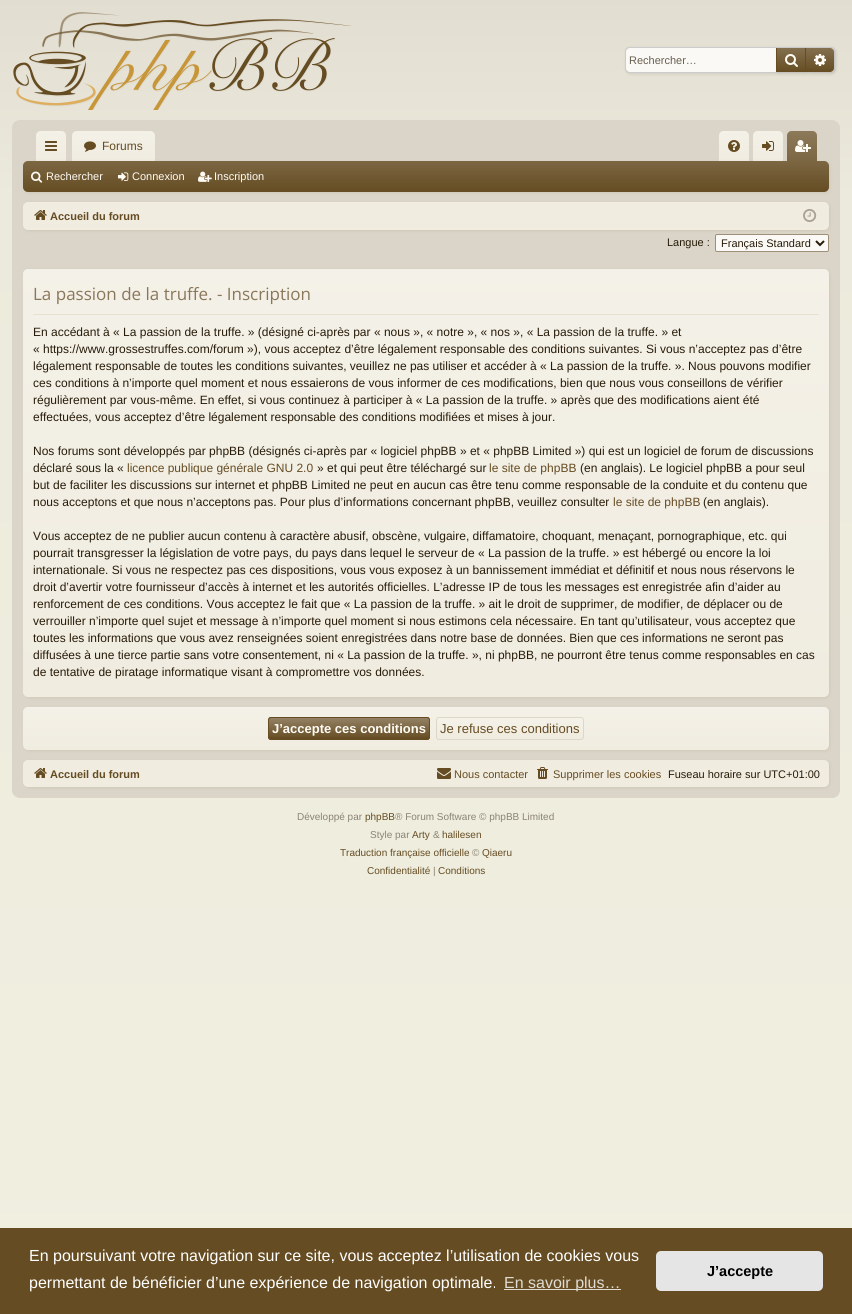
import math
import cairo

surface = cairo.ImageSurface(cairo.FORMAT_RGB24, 852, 1314)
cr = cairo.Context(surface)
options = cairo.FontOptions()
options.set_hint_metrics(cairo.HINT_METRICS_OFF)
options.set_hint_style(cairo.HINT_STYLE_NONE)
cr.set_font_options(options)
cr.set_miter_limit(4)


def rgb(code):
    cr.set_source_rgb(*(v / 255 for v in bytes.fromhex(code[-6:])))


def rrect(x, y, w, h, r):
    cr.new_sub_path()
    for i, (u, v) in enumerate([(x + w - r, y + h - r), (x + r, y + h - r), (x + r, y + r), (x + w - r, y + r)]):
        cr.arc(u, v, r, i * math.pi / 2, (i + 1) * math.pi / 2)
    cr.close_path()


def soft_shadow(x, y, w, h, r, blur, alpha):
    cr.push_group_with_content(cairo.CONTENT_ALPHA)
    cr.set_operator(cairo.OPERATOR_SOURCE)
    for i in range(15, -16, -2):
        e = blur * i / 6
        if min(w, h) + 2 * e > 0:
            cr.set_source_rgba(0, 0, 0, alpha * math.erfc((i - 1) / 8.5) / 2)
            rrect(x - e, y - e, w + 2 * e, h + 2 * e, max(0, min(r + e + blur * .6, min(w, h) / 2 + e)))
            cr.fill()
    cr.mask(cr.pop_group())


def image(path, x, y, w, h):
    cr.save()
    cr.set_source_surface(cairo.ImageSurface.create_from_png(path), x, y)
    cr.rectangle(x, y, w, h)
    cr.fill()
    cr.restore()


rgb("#ffffff")
cr.paint()
gradient = cairo.LinearGradient(426, 0, 426, 1314)
gradient.add_color_stop_rgba(0, 0.886, 0.867, 0.82, 1)
gradient.add_color_stop_rgba(0.15, 0.925, 0.918, 0.863, 1)
gradient.add_color_stop_rgba(1, 0.941, 0.937, 0.878, 1)
cr.set_source(gradient)
cr.rectangle(0, 0, 852, 1228)
cr.fill()
image("img/1.png", 13, 12, 339, 98)
rgb("#000000")
soft_shadow(626, 48, 210, 26, 4, 1.5, 0.1)
rrect(625.5, 47.5, 209, 25, 3.5)
rgb("#cccccc")
cr.set_line_width(1)
cr.stroke()
rgb("#fbf9f6")
cr.new_path()
cr.move_to(630, 48)
cr.line_to(776, 48)
cr.line_to(776, 72)
cr.line_to(630, 72)
cr.curve_to(628, 72, 626, 70, 626, 68)
cr.line_to(626, 52)
cr.curve_to(626, 50, 628, 48, 630, 48)
cr.close_path()
cr.fill()
rgb("#654c22")
soft_shadow(777, 49, 30, 24, 0, 1.5, 0.1)
gradient = cairo.LinearGradient(791, 48, 791, 72)
gradient.add_color_stop_rgba(0, 0.518, 0.439, 0.306, 1)
gradient.add_color_stop_rgba(1, 0.396, 0.298, 0.133, 1)
cr.set_source(gradient)
cr.rectangle(777, 48, 28, 24)
cr.fill()
rgb("#654c22")
cr.rectangle(805, 48, 1, 24)
cr.fill()
cr.rectangle(776, 48, 1, 24)
cr.fill()
image("img/2.png", 785, 54, 13, 13)
rgb("#654c22")
soft_shadow(807, 49, 28, 24, 4, 1.5, 0.1)
rgb("#654c22")
cr.new_path()
cr.move_to(806, 48)
cr.line_to(830, 48)
cr.curve_to(832, 48, 834, 50, 834, 52)
cr.line_to(834, 68)
cr.curve_to(834, 70, 832, 72, 830, 72)
cr.line_to(806, 72)
cr.close_path()
cr.fill()
gradient = cairo.LinearGradient(820, 48, 820, 72)
gradient.add_color_stop_rgba(0, 1, 1, 1, 0.2)
gradient.add_color_stop_rgba(1, 1, 1, 1, 0)
cr.set_source(gradient)
cr.new_path()
cr.move_to(806, 48)
cr.line_to(830, 48)
cr.curve_to(832, 48, 834, 50, 834, 52)
cr.line_to(834, 68)
cr.curve_to(834, 70, 832, 72, 830, 72)
cr.line_to(806, 72)
cr.close_path()
cr.fill()
image("img/3.png", 814, 54, 12, 12)
rgb("#dbd5c9")
rrect(12.5, 120.5, 827, 677, 7.5)
cr.fill_preserve()
cr.stroke()
rgb("#f0ece0")
cr.new_path()
cr.move_to(41, 131)
cr.line_to(61, 131)
cr.curve_to(64, 131, 66, 133, 66, 136)
cr.line_to(66, 161)
cr.line_to(36, 161)
cr.line_to(36, 136)
cr.curve_to(36, 133, 38, 131, 41, 131)
cr.close_path()
cr.fill()
gradient = cairo.LinearGradient(51, 131, 51, 161)
gradient.add_color_stop_rgba(0, 1, 1, 1, 0.25)
gradient.add_color_stop_rgba(1, 1, 1, 1, 0)
cr.set_source(gradient)
cr.new_path()
cr.move_to(41, 131)
cr.line_to(61, 131)
cr.curve_to(64, 131, 66, 133, 66, 136)
cr.line_to(66, 161)
cr.line_to(36, 161)
cr.line_to(36, 136)
cr.curve_to(36, 133, 38, 131, 41, 131)
cr.close_path()
cr.fill()
image("img/4.png", 45, 141, 12, 10)
rgb("#f0ece0")
cr.new_path()
cr.move_to(77, 131)
cr.line_to(150, 131)
cr.curve_to(153, 131, 155, 133, 155, 136)
cr.line_to(155, 161)
cr.line_to(72, 161)
cr.line_to(72, 136)
cr.curve_to(72, 133, 74, 131, 77, 131)
cr.close_path()
cr.fill()
gradient = cairo.LinearGradient(114, 131, 114, 161)
gradient.add_color_stop_rgba(0, 1, 1, 1, 0.25)
gradient.add_color_stop_rgba(1, 1, 1, 1, 0)
cr.set_source(gradient)
cr.new_path()
cr.move_to(77, 131)
cr.line_to(150, 131)
cr.curve_to(153, 131, 155, 133, 155, 136)
cr.line_to(155, 161)
cr.line_to(72, 161)
cr.line_to(72, 136)
cr.curve_to(72, 133, 74, 131, 77, 131)
cr.close_path()
cr.fill()
image("img/5.png", 84, 141, 12, 11)
rgb("#f0ece0")
cr.new_path()
cr.move_to(724, 131)
cr.line_to(744, 131)
cr.curve_to(747, 131, 749, 133, 749, 136)
cr.line_to(749, 161)
cr.line_to(719, 161)
cr.line_to(719, 136)
cr.curve_to(719, 133, 721, 131, 724, 131)
cr.close_path()
cr.fill()
gradient = cairo.LinearGradient(734, 131, 734, 161)
gradient.add_color_stop_rgba(0, 1, 1, 1, 0.25)
gradient.add_color_stop_rgba(1, 1, 1, 1, 0)
cr.set_source(gradient)
cr.new_path()
cr.move_to(724, 131)
cr.line_to(744, 131)
cr.curve_to(747, 131, 749, 133, 749, 136)
cr.line_to(749, 161)
cr.line_to(719, 161)
cr.line_to(719, 136)
cr.curve_to(719, 133, 721, 131, 724, 131)
cr.close_path()
cr.fill()
image("img/6.png", 728, 140, 12, 12)
rgb("#f0ece0")
cr.new_path()
cr.move_to(758, 131)
cr.line_to(778, 131)
cr.curve_to(781, 131, 783, 133, 783, 136)
cr.line_to(783, 161)
cr.line_to(753, 161)
cr.line_to(753, 136)
cr.curve_to(753, 133, 755, 131, 758, 131)
cr.close_path()
cr.fill()
gradient = cairo.LinearGradient(768, 131, 768, 161)
gradient.add_color_stop_rgba(0, 1, 1, 1, 0.25)
gradient.add_color_stop_rgba(1, 1, 1, 1, 0)
cr.set_source(gradient)
cr.new_path()
cr.move_to(758, 131)
cr.line_to(778, 131)
cr.curve_to(781, 131, 783, 133, 783, 136)
cr.line_to(783, 161)
cr.line_to(753, 161)
cr.line_to(753, 136)
cr.curve_to(753, 133, 755, 131, 758, 131)
cr.close_path()
cr.fill()
image("img/7.png", 762, 141, 12, 10)
rgb("#654c22")
cr.new_path()
cr.move_to(792, 131)
cr.line_to(812, 131)
cr.curve_to(815, 131, 817, 133, 817, 136)
cr.line_to(817, 161)
cr.line_to(787, 161)
cr.line_to(787, 136)
cr.curve_to(787, 133, 789, 131, 792, 131)
cr.close_path()
cr.fill()
gradient = cairo.LinearGradient(802, 131, 802, 161)
gradient.add_color_stop_rgba(0, 1, 1, 1, 0.25)
gradient.add_color_stop_rgba(1, 1, 1, 1, 0.15)
cr.set_source(gradient)
cr.new_path()
cr.move_to(792, 131)
cr.line_to(812, 131)
cr.curve_to(815, 131, 817, 133, 817, 136)
cr.line_to(817, 161)
cr.line_to(787, 161)
cr.line_to(787, 136)
cr.curve_to(787, 133, 789, 131, 792, 131)
cr.close_path()
cr.fill()
image("img/8.png", 795, 140, 16, 12)
rgb("#654c22")
soft_shadow(24, 162, 806, 31, 5, 1.5, 0.1)
rgb("#654c22")
rrect(23, 161, 806, 31, 5)
cr.fill()
gradient = cairo.LinearGradient(426, 161, 426, 192)
gradient.add_color_stop_rgba(0, 1, 1, 1, 0.15)
gradient.add_color_stop_rgba(1, 1, 1, 1, 0)
cr.set_source(gradient)
rrect(23, 161, 806, 31, 5)
cr.fill()
rgb("#654c22")
cr.new_path()
cr.move_to(789, 160)
cr.line_to(815, 160)
cr.curve_to(816, 160, 817, 161, 817, 162)
cr.line_to(787, 162)
cr.curve_to(787, 161, 788, 160, 789, 160)
cr.close_path()
cr.fill()
cr.set_source_rgba(1, 1, 1, 0.15)
cr.new_path()
cr.move_to(789, 160)
cr.line_to(815, 160)
cr.curve_to(816, 160, 817, 161, 817, 162)
cr.line_to(787, 162)
cr.curve_to(787, 161, 788, 160, 789, 160)
cr.close_path()
cr.fill()
image("img/9.png", 31, 171, 12, 12)
image("img/10.png", 118, 172, 11, 9)
image("img/11.png", 198, 171, 14, 11)
rgb("#654c22")
soft_shadow(24, 203, 806, 28, 5, 1.5, 0.1)
rgb("#f0ece0")
rrect(23, 202, 806, 28, 5)
cr.fill()
image("img/12.png", 34, 210, 13, 10)
image("img/13.png", 803, 208, 14, 15)
rgb("#fbf9f6")
rrect(715.5, 234.5, 113, 17, 1.5)
cr.fill_preserve()
rgb("#9d8f78")
cr.stroke()
cr.new_path()
cr.move_to(816, 241)
cr.line_to(820, 245)
cr.line_to(824, 241)
rgb("#271b08")
cr.set_line_width(2)
cr.stroke()
rgb("#654c22")
soft_shadow(24, 270, 806, 428, 5, 1.5, 0.1)
rgb("#f0ece0")
rrect(23, 269, 806, 428, 5)
cr.fill()
gradient = cairo.LinearGradient(426, 269, 426, 697)
gradient.add_color_stop_rgba(0, 1, 1, 1, 0.25)
gradient.add_color_stop_rgba(1, 1, 1, 1, 0)
cr.set_source(gradient)
rrect(23, 269, 806, 428, 5)
cr.fill()
rgb("#e8e1cf")
cr.rectangle(33, 314, 786, 1)
cr.fill()
rgb("#654c22")
soft_shadow(24, 708, 806, 43, 5, 1.5, 0.1)
rgb("#f0ece0")
rrect(23, 707, 806, 43, 5)
cr.fill()
gradient = cairo.LinearGradient(426, 707, 426, 750)
gradient.add_color_stop_rgba(0, 1, 1, 1, 0.25)
gradient.add_color_stop_rgba(1, 1, 1, 1, 0)
cr.set_source(gradient)
rrect(23, 707, 806, 43, 5)
cr.fill()
rgb("#654c22")
rrect(268, 717, 162, 23, 3)
cr.fill()
gradient = cairo.LinearGradient(349, 718, 349, 739)
gradient.add_color_stop_rgba(0, 1, 1, 1, 0.3)
gradient.add_color_stop_rgba(1, 1, 1, 1, 0)
cr.set_source(gradient)
cr.rectangle(268, 718, 162, 19)
cr.fill()
rrect(268.5, 717.5, 161, 22, 2.5)
rgb("#654c22")
cr.set_line_width(1)
cr.stroke()
rgb("#f0ece0")
rrect(436, 717, 148, 23, 3)
cr.fill()
gradient = cairo.LinearGradient(510, 718, 510, 739)
gradient.add_color_stop_rgba(0, 1, 1, 1, 0.3)
gradient.add_color_stop_rgba(1, 1, 1, 1, 0)
cr.set_source(gradient)
cr.rectangle(436, 718, 148, 15)
cr.fill()
rrect(436.5, 717.5, 147, 22, 2.5)
rgb("#ddd7c8")
cr.stroke()
rgb("#654c22")
soft_shadow(24, 761, 806, 27, 5, 1.5, 0.1)
rgb("#f0ece0")
rrect(23, 760, 806, 27, 5)
cr.fill()
image("img/12.png", 34, 768, 13, 10)
image("img/14.png", 437, 768, 14, 11)
image("img/15.png", 537, 767, 11, 12)
rgb("#654c22")
cr.rectangle(0, 1228, 852, 86)
cr.fill()
rgb("#e0dbd3")
cr.rectangle(504, 1289, 117, 1)
cr.fill()
rgb("#e5e5e5")
rrect(656, 1251, 167, 40, 5)
cr.fill()
cr.select_font_face("Liberation Sans")
cr.set_font_size(11)
rgb("#675e4f")
cr.move_to(629, 64)
cr.show_text("Rechercher…")
cr.set_font_size(12)
rgb("#654c22")
cr.move_to(102, 150)
cr.show_text("Forums")
cr.set_font_size(11)
rgb("#fefbf5")
for x, y, s in [
    (46, 180, "Rechercher"),
    (132, 180, "Connexion"),
    (214, 180, "Inscription"),
]:
    cr.move_to(x, y)
    cr.show_text(s)
cr.select_font_face("Liberation Sans", cairo.FONT_SLANT_NORMAL, cairo.FONT_WEIGHT_BOLD)
rgb("#654c22")
cr.move_to(50, 220)
cr.show_text("Accueil du forum")
cr.select_font_face("Liberation Sans")
rgb("#271b08")
cr.move_to(667, 246)
cr.show_text("Langue :")
cr.move_to(721, 247)
cr.show_text("Français Standard")
cr.select_font_face("Open Sans")
cr.set_font_size(17)
rgb("#897759")
cr.move_to(33, 300)
cr.show_text("La passion de la truffe. - Inscription")
cr.select_font_face("Liberation Sans")
cr.set_font_size(12)
rgb("#271b08")
for x, y, s in [
    (33, 336, "En accédant à « La passion de la truffe. » (désigné ci-après par « nous », « notre », « nos », « La passion de la truffe. » et"),
    (33, 353, "« https://www.grossestruffes.com/forum »), vous acceptez d’être légalement responsable des conditions suivantes. Si vous n’acceptez pas d’être"),
    (33, 370, "légalement responsable de toutes les conditions suivantes, veuillez ne pas utiliser et accéder à « La passion de la truffe. ». Nous pouvons modifier"),
    (33, 387, "ces conditions à n’importe quel moment et nous essaierons de vous informer de ces modifications, bien que nous vous conseillons de vérifier"),
    (33, 404, "régulièrement par vous-même. En effet, si vous continuez à participer à « La passion de la truffe. » après que des modifications aient été"),
    (33, 421, "effectuées, vous acceptez d’être légalement responsable des conditions modifiées et mises à jour."),
    (33, 455, "Nos forums sont développés par phpBB (désignés ci-après par « logiciel phpBB » et « phpBB Limited ») qui est un logiciel de forum de discussions"),
    (33, 472, "déclaré sous la «"),
]:
    cr.move_to(x, y)
    cr.show_text(s)
rgb("#654c22")
cr.move_to(127, 472)
cr.show_text("licence publique générale GNU 2.0")
rgb("#271b08")
cr.move_to(317, 472)
cr.show_text("» et qui peut être téléchargé sur")
rgb("#654c22")
cr.move_to(489, 472)
cr.show_text("le site de phpBB")
rgb("#271b08")
for x, y, s in [
    (580, 472, "(en anglais). Le logiciel phpBB a pour seul"),
    (33, 489, "but de faciliter les discussions sur internet et phpBB Limited ne peut en aucun cas être tenu comme responsable de la conduite et du contenu que"),
    (33, 506, "nous acceptons et que nous n’acceptons pas. Pour plus d’informations concernant phpBB, veuillez consulter"),
]:
    cr.move_to(x, y)
    cr.show_text(s)
rgb("#654c22")
cr.move_to(613, 506)
cr.show_text("le site de phpBB")
rgb("#271b08")
for x, y, s in [
    (703, 506, "(en anglais)."),
    (33, 540, "Vous acceptez de ne publier aucun contenu à caractère abusif, obscène, vulgaire, diffamatoire, choquant, menaçant, pornographique, etc. qui"),
    (33, 557, "pourrait transgresser la législation de votre pays, du pays dans lequel le serveur de « La passion de la truffe. » est hébergé ou encore la loi"),
    (33, 574, "internationale. Si vous ne respectez pas ces dispositions, vous vous exposez à un bannissement immédiat et définitif et nous nous réservons le"),
    (33, 591, "droit d’avertir votre fournisseur d’accès à internet et les autorités officielles. L’adresse IP de tous les messages est enregistrée afin d’aider au"),
    (33, 608, "renforcement de ces conditions. Vous acceptez le fait que « La passion de la truffe. » ait le droit de supprimer, de modifier, de déplacer ou de"),
    (33, 625, "verrouiller n’importe quel sujet et message à n’importe quel moment si nous estimons cela nécessaire. En tant qu’utilisateur, vous acceptez que"),
    (33, 642, "toutes les informations que vous avez renseignées soient enregistrées dans notre base de données. Bien que ces informations ne seront pas"),
    (33, 659, "diffusées à une tierce partie sans votre consentement, ni « La passion de la truffe. », ni phpBB, ne pourront être tenus comme responsables en cas"),
    (33, 676, "de tentative de piratage informatique visant à compromettre vos données."),
]:
    cr.move_to(x, y)
    cr.show_text(s)
cr.select_font_face("Liberation Sans", cairo.FONT_SLANT_NORMAL, cairo.FONT_WEIGHT_BOLD)
cr.set_font_size(13)
rgb("#fefbf5")
cr.move_to(272, 733)
cr.show_text("J’accepte ces conditions")
cr.select_font_face("Liberation Sans")
rgb("#654c22")
cr.move_to(440, 733)
cr.show_text("Je refuse ces conditions")
cr.select_font_face("Liberation Sans", cairo.FONT_SLANT_NORMAL, cairo.FONT_WEIGHT_BOLD)
cr.set_font_size(11)
cr.move_to(50, 778)
cr.show_text("Accueil du forum")
cr.select_font_face("Liberation Sans")
cr.move_to(454, 778)
cr.show_text("Nous contacter")
cr.move_to(553, 778)
cr.show_text("Supprimer les cookies")
rgb("#271b08")
cr.move_to(668, 778)
cr.show_text("Fuseau horaire sur UTC+01:00")
cr.set_font_size(10)
rgb("#8b8374")
cr.move_to(297, 820)
cr.show_text("Développé par")
rgb("#654c22")
cr.move_to(365, 820)
cr.show_text("phpBB")
rgb("#8b8374")
cr.move_to(395, 820)
cr.show_text("® Forum Software © phpBB Limited")
cr.move_to(370, 838)
cr.show_text("Style par")
rgb("#654c22")
cr.move_to(412, 838)
cr.show_text("Arty")
rgb("#8b8374")
cr.move_to(433, 838)
cr.show_text("&")
rgb("#654c22")
cr.move_to(442, 838)
cr.show_text("halilesen")
cr.move_to(340, 856)
cr.show_text("Traduction française officielle")
rgb("#8b8374")
cr.move_to(472, 856)
cr.show_text("©")
rgb("#654c22")
cr.move_to(482, 856)
cr.show_text("Qiaeru")
cr.move_to(367, 874)
cr.show_text("Confidentialité")
rgb("#8b8374")
cr.move_to(433, 874)
cr.show_text("|")
rgb("#654c22")
cr.move_to(438, 874)
cr.show_text("Conditions")
cr.set_font_size(16)
rgb("#ffffff")
cr.move_to(29, 1261)
cr.show_text("En poursuivant votre navigation sur ce site, vous acceptez l’utilisation de cookies vous")
cr.move_to(29, 1288)
cr.show_text("permettant de bénéficier d’une expérience de navigation optimale.")
rgb("#e0dbd3")
cr.move_to(504, 1288)
cr.show_text("En savoir plus…")
cr.select_font_face("Liberation Sans", cairo.FONT_SLANT_NORMAL, cairo.FONT_WEIGHT_BOLD)
cr.set_font_size(14.5)
rgb("#000000")
cr.move_to(707, 1276)
cr.show_text("J’accepte")
surface.write_to_png("page.png")
